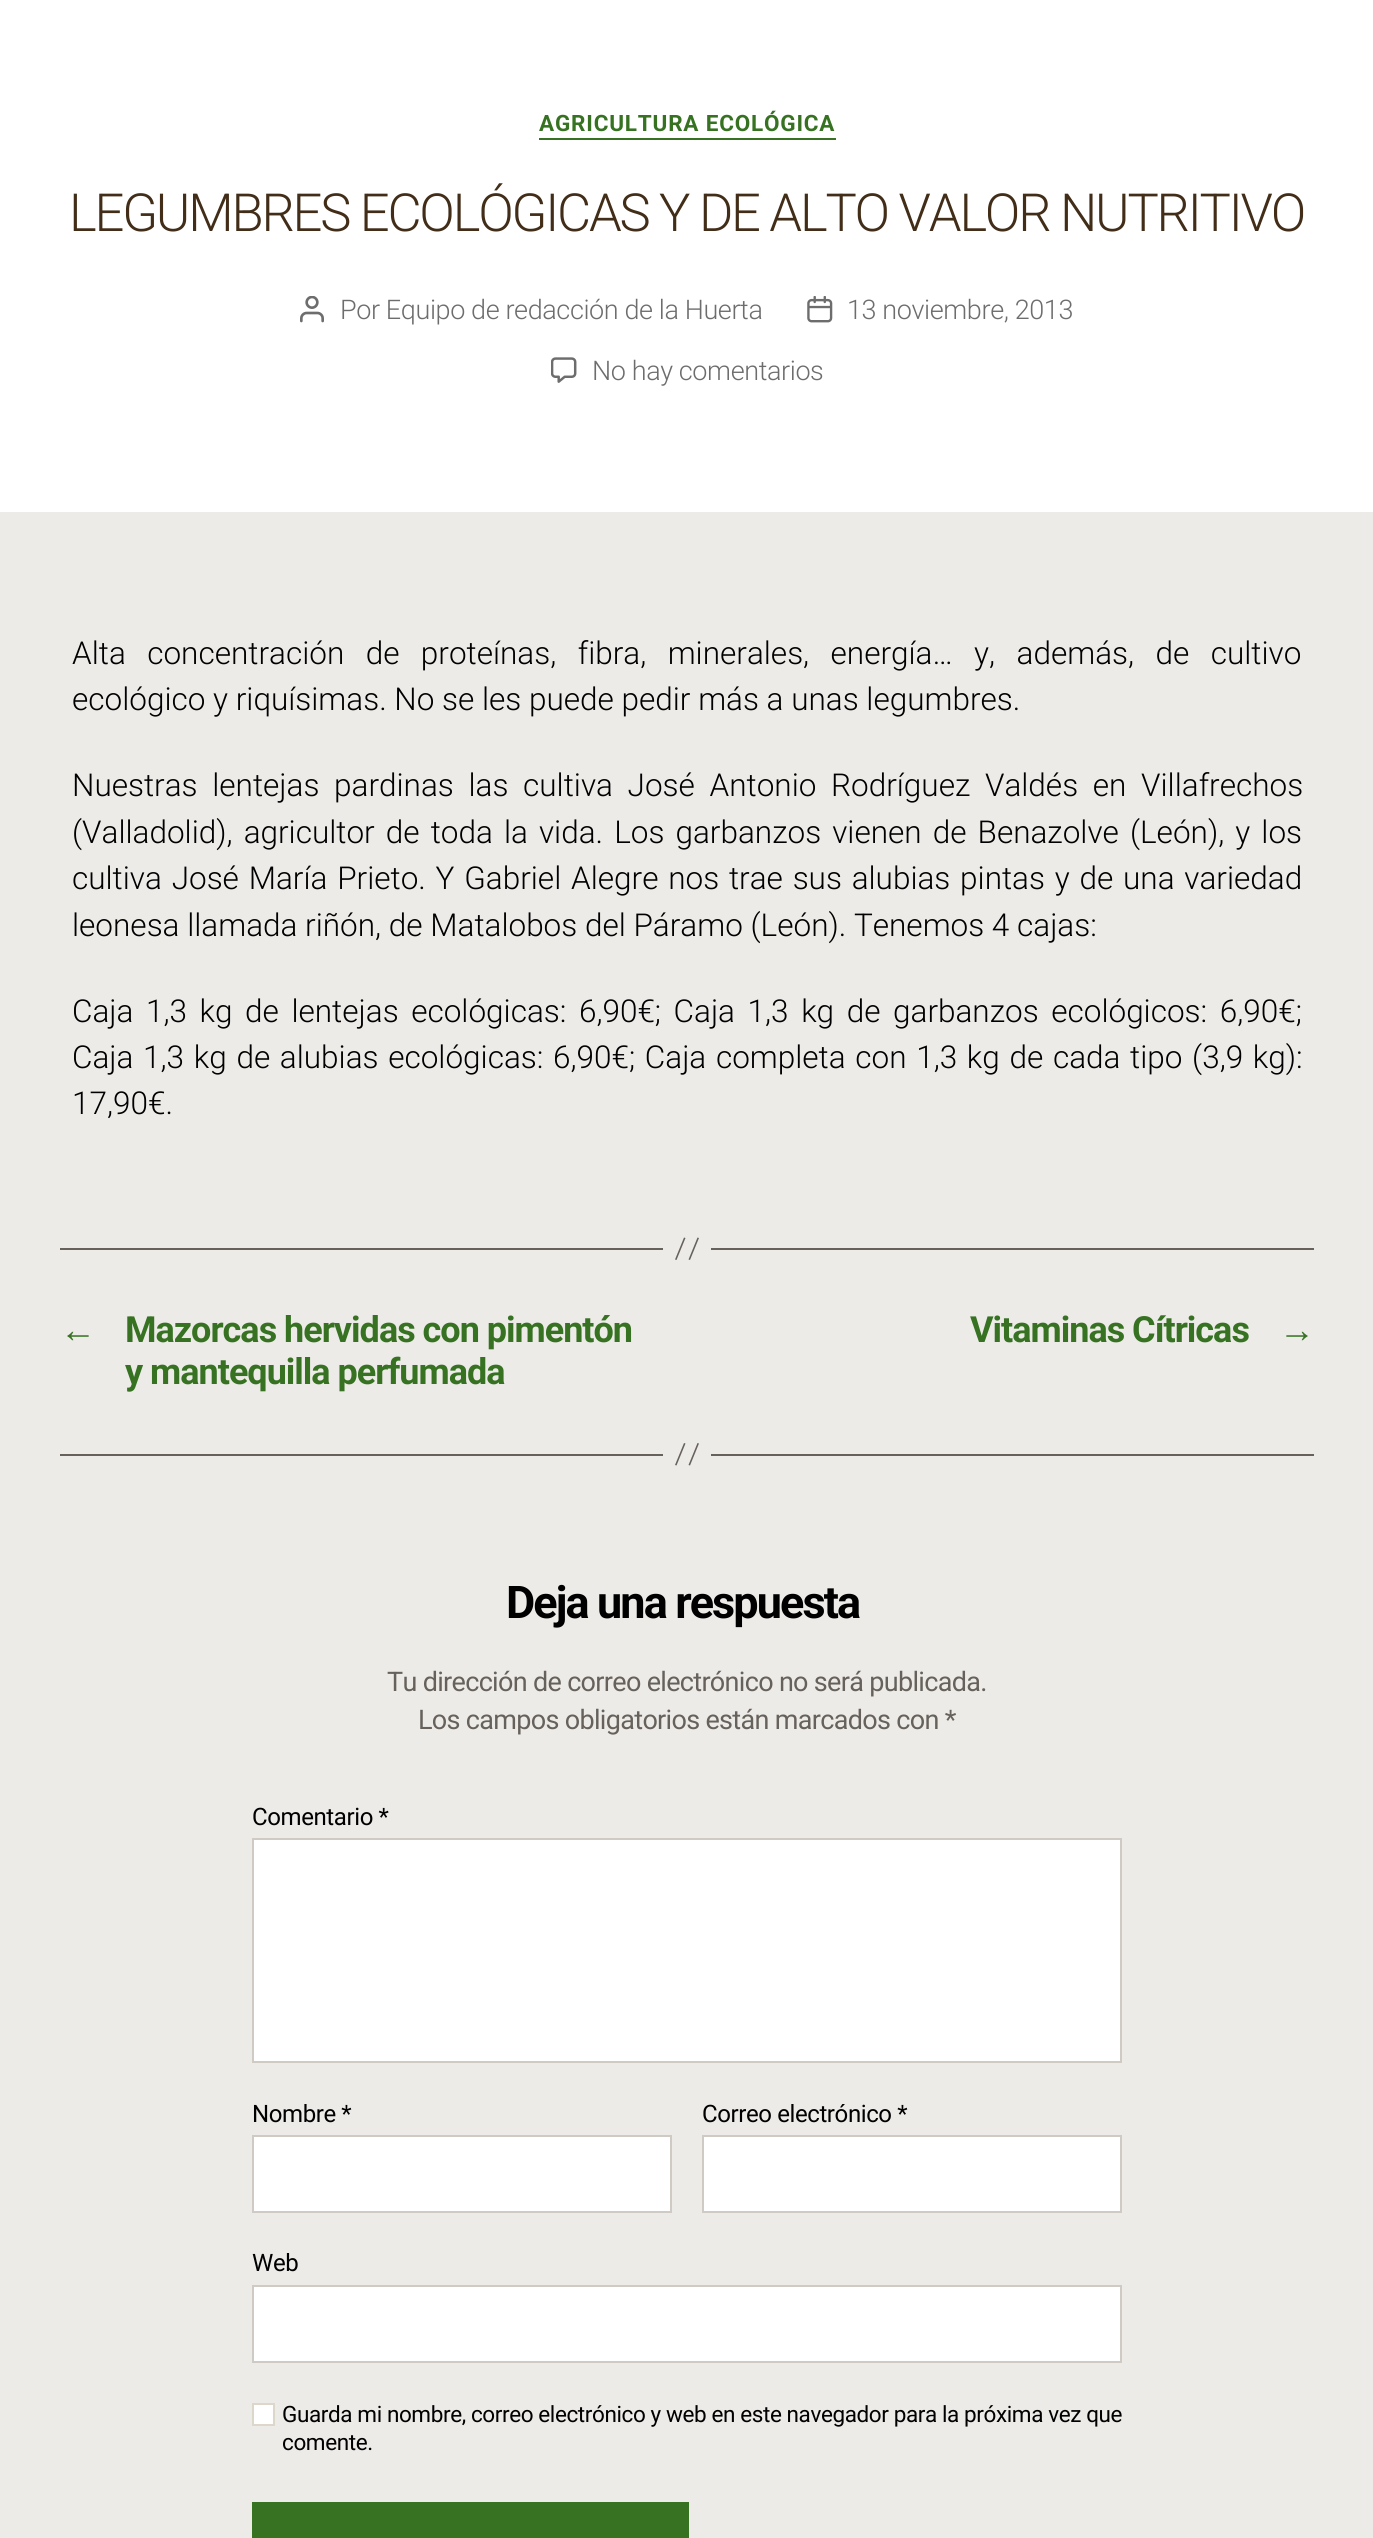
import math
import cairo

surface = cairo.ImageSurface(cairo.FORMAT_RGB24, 1373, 2538)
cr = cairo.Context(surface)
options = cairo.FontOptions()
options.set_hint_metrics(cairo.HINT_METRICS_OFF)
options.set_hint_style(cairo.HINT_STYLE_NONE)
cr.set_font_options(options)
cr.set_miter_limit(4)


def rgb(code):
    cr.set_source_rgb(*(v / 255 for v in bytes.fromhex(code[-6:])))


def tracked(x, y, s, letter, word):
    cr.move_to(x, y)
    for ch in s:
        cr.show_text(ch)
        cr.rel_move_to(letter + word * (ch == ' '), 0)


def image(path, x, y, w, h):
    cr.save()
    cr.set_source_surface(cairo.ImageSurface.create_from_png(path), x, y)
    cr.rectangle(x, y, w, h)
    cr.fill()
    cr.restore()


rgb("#edebe8")
cr.paint()
rgb("#ffffff")
cr.rectangle(0, 0, 1373, 512)
cr.fill()
rgb("#367221")
cr.rectangle(539, 138, 297, 2)
cr.fill()
image("img/1.png", 300, 296, 24, 27)
image("img/2.png", 807, 296, 26, 27)
image("img/3.png", 551, 357, 26, 26)
rgb("#66615b")
cr.rectangle(711, 1248, 603, 2)
cr.fill()
cr.rectangle(60, 1248, 603, 2)
cr.fill()
cr.new_path()
cr.move_to(684, 1237.5)
cr.line_to(685.5, 1238)
cr.line_to(676.5, 1260)
cr.line_to(675, 1259.5)
cr.close_path()
cr.move_to(697.5, 1237.5)
cr.line_to(699, 1238)
cr.line_to(690, 1260)
cr.line_to(688.5, 1259.5)
cr.close_path()
cr.fill()
cr.rectangle(711, 1454, 603, 2)
cr.fill()
cr.rectangle(60, 1454, 603, 2)
cr.fill()
cr.new_path()
cr.move_to(684, 1443)
cr.line_to(685.5, 1443.5)
cr.line_to(676.5, 1465.5)
cr.line_to(675, 1465)
cr.close_path()
cr.move_to(697.5, 1443)
cr.line_to(699, 1443.5)
cr.line_to(690, 1465.5)
cr.line_to(688.5, 1465)
cr.close_path()
cr.fill()
rgb("#ffffff")
cr.rectangle(253, 1839, 868, 223)
cr.fill_preserve()
rgb("#cfcac3")
cr.stroke()
rgb("#ffffff")
cr.rectangle(253, 2136, 418, 76)
cr.fill_preserve()
rgb("#cfcac3")
cr.stroke()
rgb("#ffffff")
cr.rectangle(703, 2136, 418, 76)
cr.fill_preserve()
rgb("#cfcac3")
cr.stroke()
rgb("#ffffff")
cr.rectangle(253, 2286, 868, 76)
cr.fill_preserve()
rgb("#cfcac3")
cr.stroke()
rgb("#ffffff")
cr.rectangle(253, 2404, 21, 21)
cr.fill_preserve()
rgb("#dcd7ca")
cr.stroke()
rgb("#367221")
cr.rectangle(252, 2502, 437, 36)
cr.fill()
cr.select_font_face("Roboto", cairo.FONT_SLANT_NORMAL, cairo.FONT_WEIGHT_BOLD)
cr.set_font_size(22.5)
tracked(539, 131, "AGRICULTURA ECOLÓGICA", 0.8, 0)
cr.select_font_face("Roboto Light")
cr.set_font_size(52.5)
rgb("#422d18")
tracked(69, 231, "LEGUMBRES ECOLÓGICAS Y DE ALTO VALOR NUTRITIVO", -2.2, 0)
cr.set_font_size(27)
rgb("#6d6d6d")
for x, y, s in [
    (340, 319, "Por Equipo de redacción de la Huerta"),
    (847, 319, "13 noviembre, 2013"),
    (592, 380, "No hay comentarios"),
]:
    tracked(x, y, s, -0.4, 0)
cr.set_font_size(31.5)
rgb("#000000")
tracked(72, 664, "Alta concentración de proteínas, fibra, minerales, energía… y, además, de cultivo", 0, 13.75)
cr.move_to(72, 710)
cr.show_text("ecológico y riquísimas. No se les puede pedir más a unas legumbres.")
tracked(72, 796, "Nuestras lentejas pardinas las cultiva José Antonio Rodríguez Valdés en Villafrechos", 0, 7)
tracked(72, 843, "(Valladolid), agricultor de toda la vida. Los garbanzos vienen de Benazolve (León), y los", 0, 3.4)
tracked(72, 889, "cultiva José María Prieto. Y Gabriel Alegre nos trae sus alubias pintas y de una variedad", 0, 2.1)
cr.move_to(72, 936)
cr.show_text("leonesa llamada riñón, de Matalobos del Páramo (León). Tenemos 4 cajas:")
tracked(72, 1022, "Caja 1,3 kg de lentejas ecológicas: 6,90€; Caja 1,3 kg de garbanzos ecológicos: 6,90€;", 0, 4.9)
tracked(72, 1068, "Caja 1,3 kg de alubias ecológicas: 6,90€; Caja completa con 1,3 kg de cada tipo (3,9 kg):", 0, 2)
cr.move_to(72, 1114)
cr.show_text("17,90€.")
cr.select_font_face("Liberation Serif", cairo.FONT_SLANT_NORMAL, cairo.FONT_WEIGHT_BOLD)
cr.set_font_size(36)
rgb("#367221")
tracked(60, 1342, "←", -1, 0)
cr.select_font_face("Roboto", cairo.FONT_SLANT_NORMAL, cairo.FONT_WEIGHT_BOLD)
for x, y, s in [
    (125, 1342, "Mazorcas hervidas con pimentón"),
    (125, 1384, "y mantequilla perfumada"),
    (970, 1342, "Vitaminas Cítricas"),
]:
    tracked(x, y, s, -1, 0)
cr.select_font_face("Liberation Serif", cairo.FONT_SLANT_NORMAL, cairo.FONT_WEIGHT_BOLD)
tracked(1279, 1342, "→", -1, 0)
cr.select_font_face("Roboto", cairo.FONT_SLANT_NORMAL, cairo.FONT_WEIGHT_BOLD)
cr.set_font_size(45)
rgb("#000000")
tracked(506, 1618, "Deja una respuesta", -1.9, 0)
cr.select_font_face("Roboto")
cr.set_font_size(27)
rgb("#66615b")
tracked(387, 1691, "Tu dirección de correo electrónico no será publicada.", -0.68, 0)
tracked(418, 1729, "Los campos obligatorios están marcados con *", -0.68, 0)
cr.set_font_size(24)
rgb("#000000")
for x, y, s in [
    (252, 1825, "Comentario *"),
    (252, 2122, "Nombre *"),
    (702, 2122, "Correo electrónico *"),
    (252, 2271, "Web"),
]:
    tracked(x, y, s, -0.4, 0)
cr.set_font_size(22.5)
tracked(282, 2422, "Guarda mi nombre, correo electrónico y web en este navegador para la próxima vez que", -0.4, 0)
tracked(282, 2450, "comente.", -0.4, 0)
surface.write_to_png("page.png")
